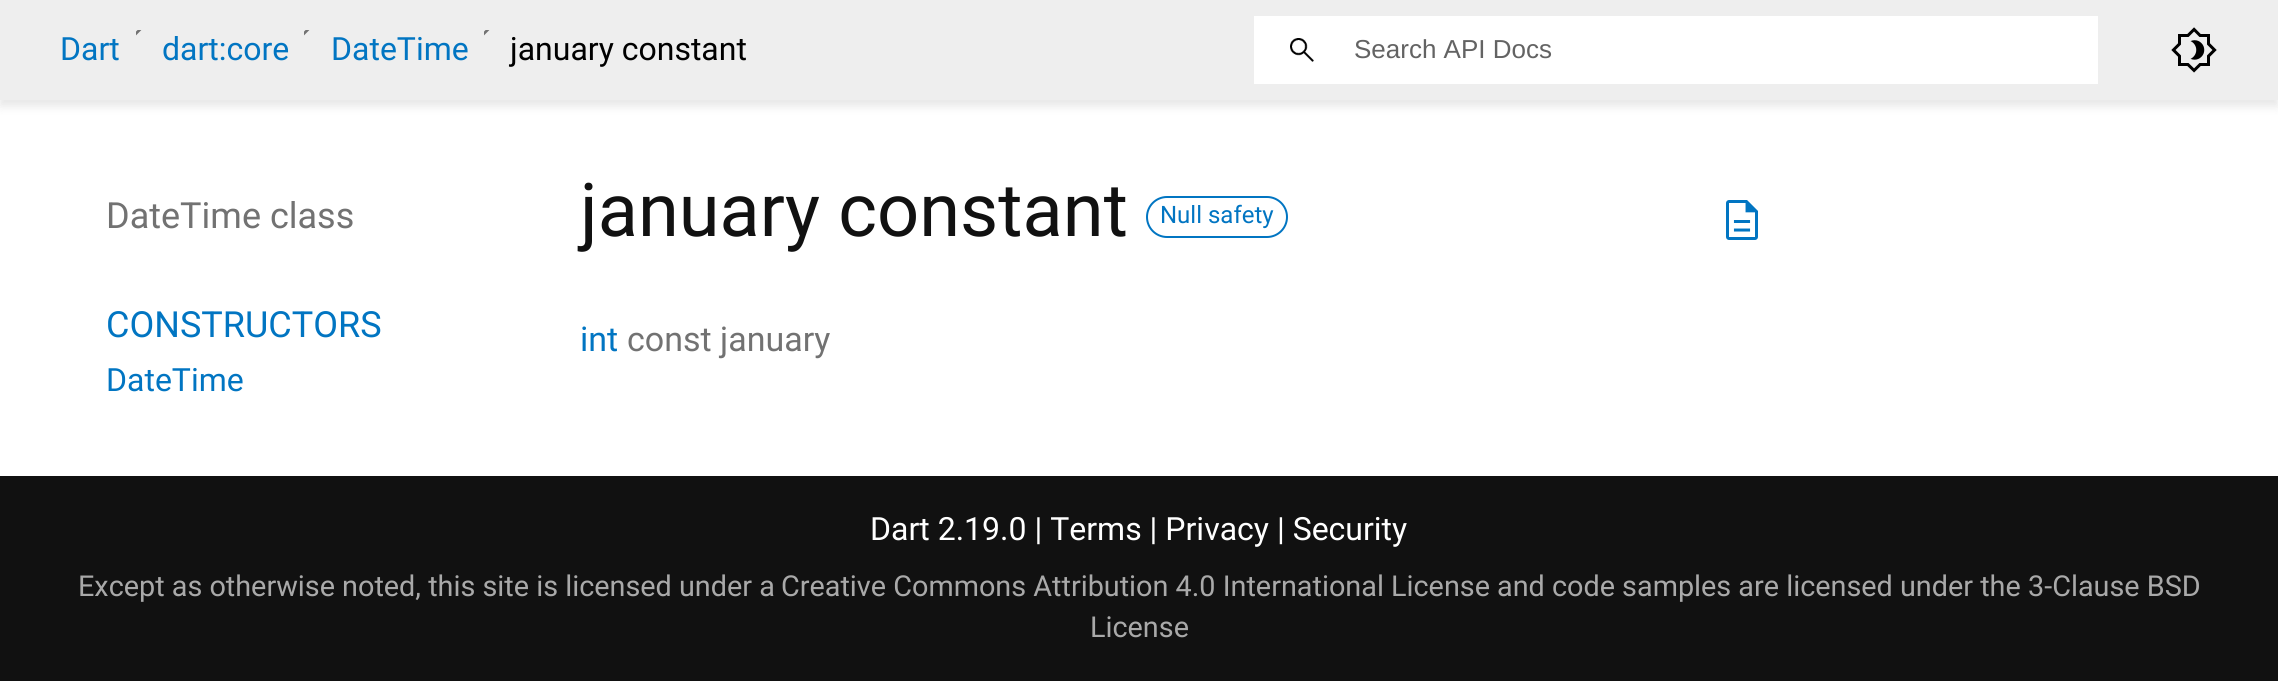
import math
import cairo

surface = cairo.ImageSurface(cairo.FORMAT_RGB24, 2278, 681)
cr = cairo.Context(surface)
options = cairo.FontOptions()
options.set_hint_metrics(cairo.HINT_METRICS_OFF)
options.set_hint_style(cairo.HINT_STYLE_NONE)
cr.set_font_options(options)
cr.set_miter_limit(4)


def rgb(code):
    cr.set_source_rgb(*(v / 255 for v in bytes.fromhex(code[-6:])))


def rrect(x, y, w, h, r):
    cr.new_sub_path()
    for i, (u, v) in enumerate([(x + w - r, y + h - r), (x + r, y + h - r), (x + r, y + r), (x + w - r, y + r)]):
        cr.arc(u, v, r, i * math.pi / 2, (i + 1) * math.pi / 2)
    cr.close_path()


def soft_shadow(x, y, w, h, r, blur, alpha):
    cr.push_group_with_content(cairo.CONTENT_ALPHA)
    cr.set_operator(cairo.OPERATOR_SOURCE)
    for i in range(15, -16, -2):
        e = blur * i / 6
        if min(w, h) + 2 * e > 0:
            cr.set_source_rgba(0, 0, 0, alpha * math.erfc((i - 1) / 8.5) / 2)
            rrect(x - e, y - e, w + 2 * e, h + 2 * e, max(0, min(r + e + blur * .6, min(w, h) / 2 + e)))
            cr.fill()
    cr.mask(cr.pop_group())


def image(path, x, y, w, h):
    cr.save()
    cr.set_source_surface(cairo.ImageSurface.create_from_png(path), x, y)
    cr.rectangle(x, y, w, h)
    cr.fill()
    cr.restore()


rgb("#ffffff")
cr.paint()
rgb("#000000")
soft_shadow(0, 6, 2278, 100, 0, 5, 0.1)
rgb("#eeeeee")
cr.rectangle(0, 0, 2278, 100)
cr.fill()
image("img/1.png", 136, 30, 6, 6)
image("img/1.png", 304, 30, 6, 6)
image("img/1.png", 484, 30, 6, 6)
rgb("#ffffff")
cr.rectangle(1254, 16, 844, 68)
cr.fill()
image("img/2.png", 1290, 38, 24, 24)
image("img/3.png", 2171, 27, 46, 46)
rrect(1147, 197, 140, 40, 20)
rgb("#0175c2")
cr.stroke()
image("img/4.png", 1726, 200, 32, 40)
rgb("#111111")
cr.rectangle(0, 476, 2278, 205)
cr.fill()
cr.select_font_face("Roboto")
cr.set_font_size(32)
rgb("#0175c2")
for x, y, s in [
    (60, 60, "Dart"),
    (162, 60, "dart:core"),
    (331, 60, "DateTime"),
]:
    cr.move_to(x, y)
    cr.show_text(s)
rgb("#000000")
cr.move_to(510, 60)
cr.show_text("january constant")
cr.select_font_face("Liberation Sans")
cr.set_font_size(26)
rgb("#636363")
cr.move_to(1354, 58)
cr.show_text("Search API Docs")
cr.select_font_face("Roboto")
cr.set_font_size(36)
rgb("#727272")
cr.move_to(106, 228)
cr.show_text("DateTime class")
rgb("#0175c2")
cr.move_to(106, 337)
cr.show_text("CONSTRUCTORS")
cr.set_font_size(32)
cr.move_to(106, 391)
cr.show_text("DateTime")
cr.set_font_size(74)
rgb("#111111")
cr.move_to(580, 236)
cr.show_text("january constant")
cr.set_font_size(24)
rgb("#0175c2")
cr.move_to(1160, 223)
cr.show_text("Null safety")
cr.set_font_size(34)
cr.move_to(580, 351)
cr.show_text("int")
rgb("#727272")
cr.move_to(627, 351)
cr.show_text("const january")
cr.set_font_size(32)
rgb("#ffffff")
cr.move_to(870, 540)
cr.show_text("Dart 2.19.0 | Terms | Privacy | Security")
cr.set_font_size(28.8)
rgb("#a9a9a9")
for x, y, s in [
    (78, 596, "Except as otherwise noted, this site is licensed under a"),
    (781, 596, "Creative Commons Attribution 4.0 International License"),
    (1497, 596, "and code samples are licensed under the"),
    (2028, 596, "3-Clause BSD"),
    (1090, 637, "License"),
]:
    cr.move_to(x, y)
    cr.show_text(s)
surface.write_to_png("page.png")
